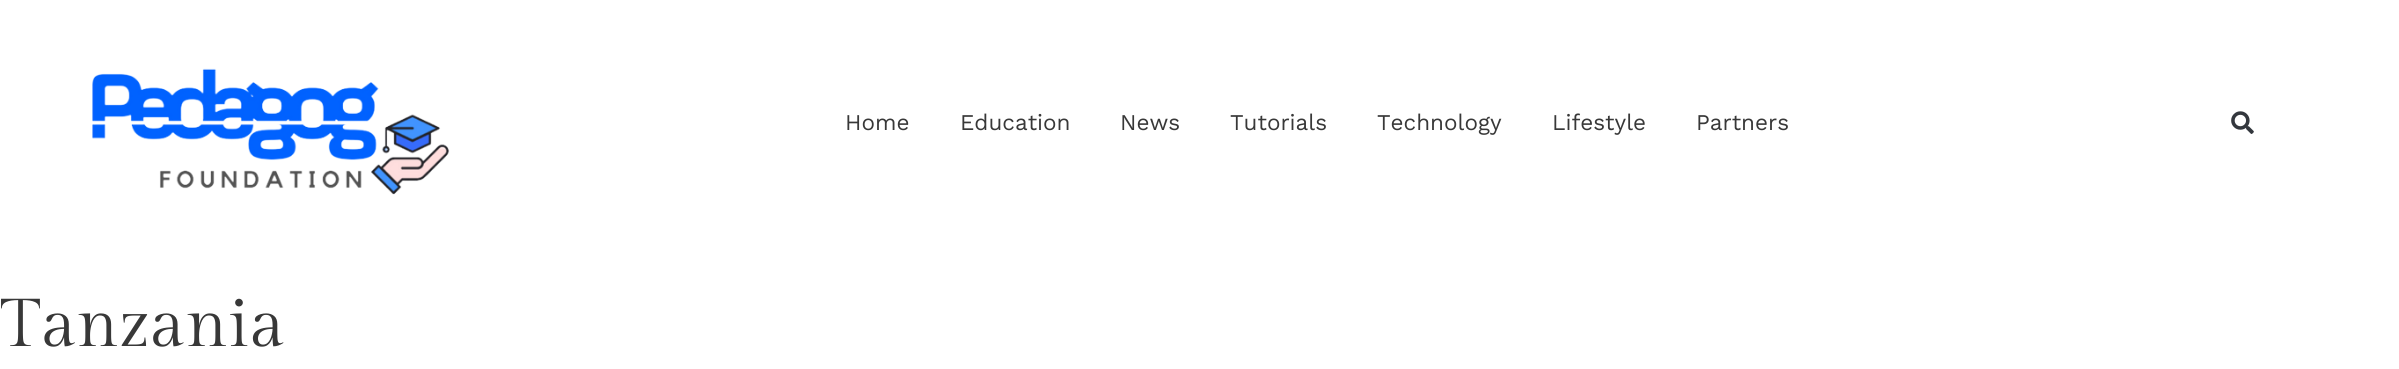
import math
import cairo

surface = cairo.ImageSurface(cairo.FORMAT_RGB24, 2399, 369)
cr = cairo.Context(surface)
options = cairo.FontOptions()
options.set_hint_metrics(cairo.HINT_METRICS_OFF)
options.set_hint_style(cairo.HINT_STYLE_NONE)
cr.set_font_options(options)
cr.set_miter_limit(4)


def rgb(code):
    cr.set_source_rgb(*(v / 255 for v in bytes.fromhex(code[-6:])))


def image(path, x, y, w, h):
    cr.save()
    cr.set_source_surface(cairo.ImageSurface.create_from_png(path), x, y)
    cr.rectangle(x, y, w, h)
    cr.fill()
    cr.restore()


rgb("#ffffff")
cr.paint()
image("img/1.png", 92, 68, 358, 127)
image("img/2.png", 2231, 111, 23, 23)
cr.select_font_face("Work Sans")
cr.set_font_size(22.5)
rgb("#383838")
for x, y, s in [
    (845, 130, "Home"),
    (960, 130, "Education"),
    (1120, 130, "News"),
    (1230, 130, "Tutorials"),
    (1377, 130, "Technology"),
    (1552, 130, "Lifestyle"),
    (1696, 130, "Partners"),
]:
    cr.move_to(x, y)
    cr.show_text(s)
cr.select_font_face("Gilda Display")
cr.set_font_size(67.5)
cr.move_to(0, 346)
cr.show_text("Tanzania")
surface.write_to_png("page.png")
